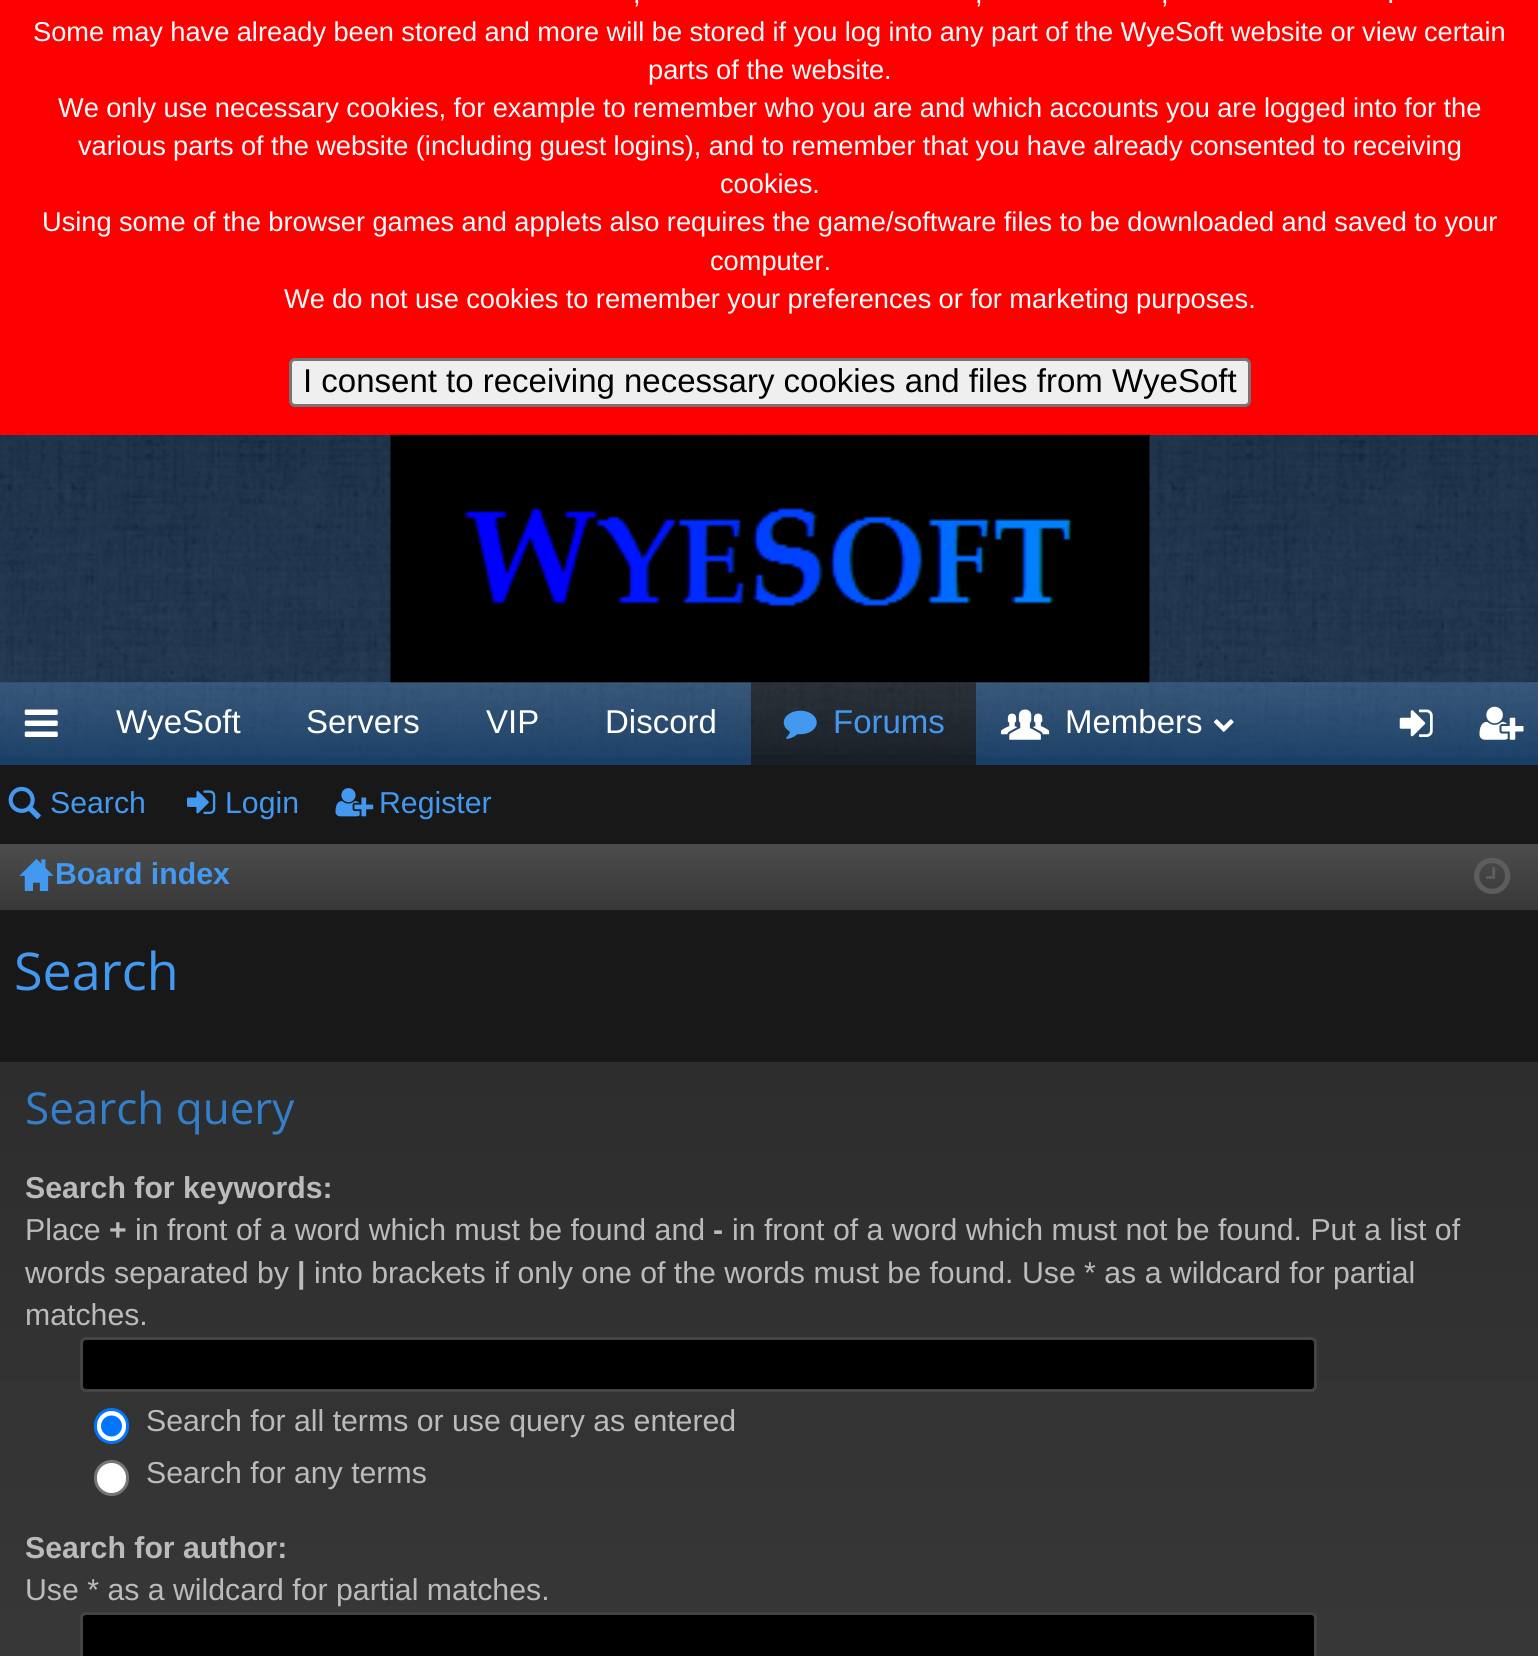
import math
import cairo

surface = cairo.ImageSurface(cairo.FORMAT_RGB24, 1538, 1656)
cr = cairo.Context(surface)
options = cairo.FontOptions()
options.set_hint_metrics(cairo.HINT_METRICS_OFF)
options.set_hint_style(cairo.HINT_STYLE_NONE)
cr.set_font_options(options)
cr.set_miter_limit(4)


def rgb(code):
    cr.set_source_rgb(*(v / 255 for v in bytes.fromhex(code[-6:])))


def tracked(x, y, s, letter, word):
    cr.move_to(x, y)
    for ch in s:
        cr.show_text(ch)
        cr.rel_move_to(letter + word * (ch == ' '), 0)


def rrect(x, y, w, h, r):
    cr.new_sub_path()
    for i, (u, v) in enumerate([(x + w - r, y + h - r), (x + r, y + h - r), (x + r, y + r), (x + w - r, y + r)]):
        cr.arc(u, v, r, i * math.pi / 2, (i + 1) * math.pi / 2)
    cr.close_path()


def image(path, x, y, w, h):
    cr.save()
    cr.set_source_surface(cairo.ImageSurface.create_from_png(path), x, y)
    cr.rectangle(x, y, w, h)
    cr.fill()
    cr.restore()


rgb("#ff0000")
cr.paint()
rgb("#efefef")
rrect(290.5, 359.5, 959, 46, 4.5)
cr.fill_preserve()
rgb("#767676")
cr.set_line_width(3)
cr.stroke()
rgb("#1a3a5c")
cr.rectangle(0, 435, 1538, 247)
cr.fill()
image("img/1.png", 0, 434, 1538, 248)
rgb("#1a3f66")
cr.rectangle(0, 682, 1538, 83)
cr.fill()
image("img/3.png", 0, 682, 1538, 75)
image("img/2.png", 390, 434, 760, 249)
rgb("#181818")
cr.rectangle(0, 765, 1538, 297)
cr.fill()
image("img/4.png", 24, 709, 34, 28)
rgb("#181f27")
cr.rectangle(751, 682, 225, 83)
cr.fill()
image("img/5.png", 751, 682, 225, 73)
image("img/6.png", 783, 710, 34, 29)
image("img/7.png", 1001, 709, 49, 31)
image("img/8.png", 1213, 719, 21, 13)
image("img/9.png", 1399, 709, 34, 28)
image("img/10.png", 1479, 706, 45, 34)
image("img/11.png", 8, 786, 33, 34)
image("img/12.png", 187, 790, 29, 24)
image("img/13.png", 335, 788, 39, 29)
gradient = cairo.LinearGradient(770, 844, 770, 910)
gradient.add_color_stop_rgba(0, 0.298, 0.298, 0.298, 1)
gradient.add_color_stop_rgba(1, 0.22, 0.22, 0.22, 1)
cr.set_source(gradient)
cr.rectangle(0, 844, 1538, 66)
cr.fill()
image("img/14.png", 19, 858, 35, 33)
image("img/15.png", 1474, 857, 37, 37)
gradient = cairo.LinearGradient(770, 1062, 770, 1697)
gradient.add_color_stop_rgba(0, 0.176, 0.176, 0.176, 1)
gradient.add_color_stop_rgba(1, 0.22, 0.22, 0.22, 1)
cr.set_source(gradient)
cr.rectangle(0, 1062, 1538, 594)
cr.fill()
rgb("#000000")
rrect(81.5, 1338.5, 1234, 52, 4.5)
cr.fill_preserve()
rgb("#444444")
cr.stroke()
rgb("#ffffff")
rrect(95.5, 1409.5, 32, 33, 16)
cr.fill_preserve()
rgb("#0075ff")
cr.stroke()
cr.arc(111.5, 1426, 10.5, 0, 2 * math.pi)
cr.fill()
rgb("#ffffff")
rrect(95.5, 1461.5, 32, 33, 16)
cr.fill_preserve()
rgb("#767676")
cr.stroke()
rgb("#000000")
rrect(81.5, 1613.5, 1234, 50, 4.5)
cr.fill_preserve()
rgb("#444444")
cr.stroke()
cr.select_font_face("Liberation Sans")
cr.set_font_size(27.23)
rgb("#ffffff")
for x, y, s in [
    (633, 3, ","),
    (975, 3, ","),
    (1161, 3, ","),
    (1387, 3, "."),
]:
    cr.move_to(x, y)
    cr.show_text(s)
tracked(33, 41, "Some may have already been stored and more will be stored if you log into any part of the WyeSoft website or view certain", 0, -0.2)
cr.move_to(648, 79)
cr.show_text("parts of the website.")
tracked(58, 117, "We only use necessary cookies, for example to remember who you are and which accounts you are logged into for the", 0, -0.2)
tracked(78, 155, "various parts of the website (including guest logins), and to remember that you have already consented to receiving", 0, -0.25)
cr.move_to(720, 193)
cr.show_text("cookies.")
tracked(42, 231, "Using some of the browser games and applets also requires the game/software files to be downloaded and saved to your", 0, -0.2)
cr.move_to(710, 270)
cr.show_text("computer.")
tracked(284, 308, "We do not use cookies to remember your preferences or for marketing purposes.", 0, -0.25)
cr.set_font_size(33)
rgb("#000000")
cr.move_to(303, 392)
cr.show_text("I consent to receiving necessary cookies and files from WyeSoft")
rgb("#ffffff")
for x, y, s in [
    (116, 733, "WyeSoft"),
    (306, 733, "Servers"),
    (486, 733, "VIP"),
    (605, 733, "Discord"),
]:
    cr.move_to(x, y)
    cr.show_text(s)
rgb("#4398ef")
cr.move_to(833, 733)
cr.show_text("Forums")
rgb("#ffffff")
cr.move_to(1065, 733)
cr.show_text("Members")
cr.set_font_size(30.25)
rgb("#4398ef")
for x, y, s in [
    (50, 813, "Search"),
    (225, 813, "Login"),
    (379, 813, "Register"),
]:
    cr.move_to(x, y)
    cr.show_text(s)
cr.select_font_face("Liberation Sans", cairo.FONT_SLANT_NORMAL, cairo.FONT_WEIGHT_BOLD)
cr.move_to(55, 884)
cr.show_text("Board index")
cr.select_font_face("Open Sans")
cr.set_font_size(52)
cr.move_to(14, 990)
cr.show_text("Search")
cr.set_font_size(44)
rgb("#347fcb")
cr.move_to(25, 1124)
cr.show_text("Search query")
cr.select_font_face("Liberation Sans", cairo.FONT_SLANT_NORMAL, cairo.FONT_WEIGHT_BOLD)
cr.set_font_size(30.25)
rgb("#bbbbbb")
cr.move_to(25, 1198)
cr.show_text("Search for keywords:")
cr.select_font_face("Liberation Sans")
cr.move_to(25, 1240)
cr.show_text("Place")
cr.select_font_face("Liberation Sans", cairo.FONT_SLANT_NORMAL, cairo.FONT_WEIGHT_BOLD)
cr.move_to(109, 1240)
cr.show_text("+")
cr.select_font_face("Liberation Sans")
cr.move_to(135, 1240)
cr.show_text("in front of a word which must be found and")
cr.select_font_face("Liberation Sans", cairo.FONT_SLANT_NORMAL, cairo.FONT_WEIGHT_BOLD)
cr.move_to(713, 1240)
cr.show_text("-")
cr.select_font_face("Liberation Sans")
cr.move_to(732, 1240)
cr.show_text("in front of a word which must not be found. Put a list of")
cr.move_to(25, 1283)
cr.show_text("words separated by")
cr.select_font_face("Liberation Sans", cairo.FONT_SLANT_NORMAL, cairo.FONT_WEIGHT_BOLD)
cr.move_to(297, 1283)
cr.show_text("|")
cr.select_font_face("Liberation Sans")
for x, y, s in [
    (314, 1283, "into brackets if only one of the words must be found. Use * as a wildcard for partial"),
    (25, 1325, "matches."),
    (146, 1431, "Search for all terms or use query as entered"),
    (146, 1483, "Search for any terms"),
]:
    cr.move_to(x, y)
    cr.show_text(s)
cr.select_font_face("Liberation Sans", cairo.FONT_SLANT_NORMAL, cairo.FONT_WEIGHT_BOLD)
cr.move_to(25, 1558)
cr.show_text("Search for author:")
cr.select_font_face("Liberation Sans")
cr.move_to(25, 1600)
cr.show_text("Use * as a wildcard for partial matches.")
surface.write_to_png("page.png")
